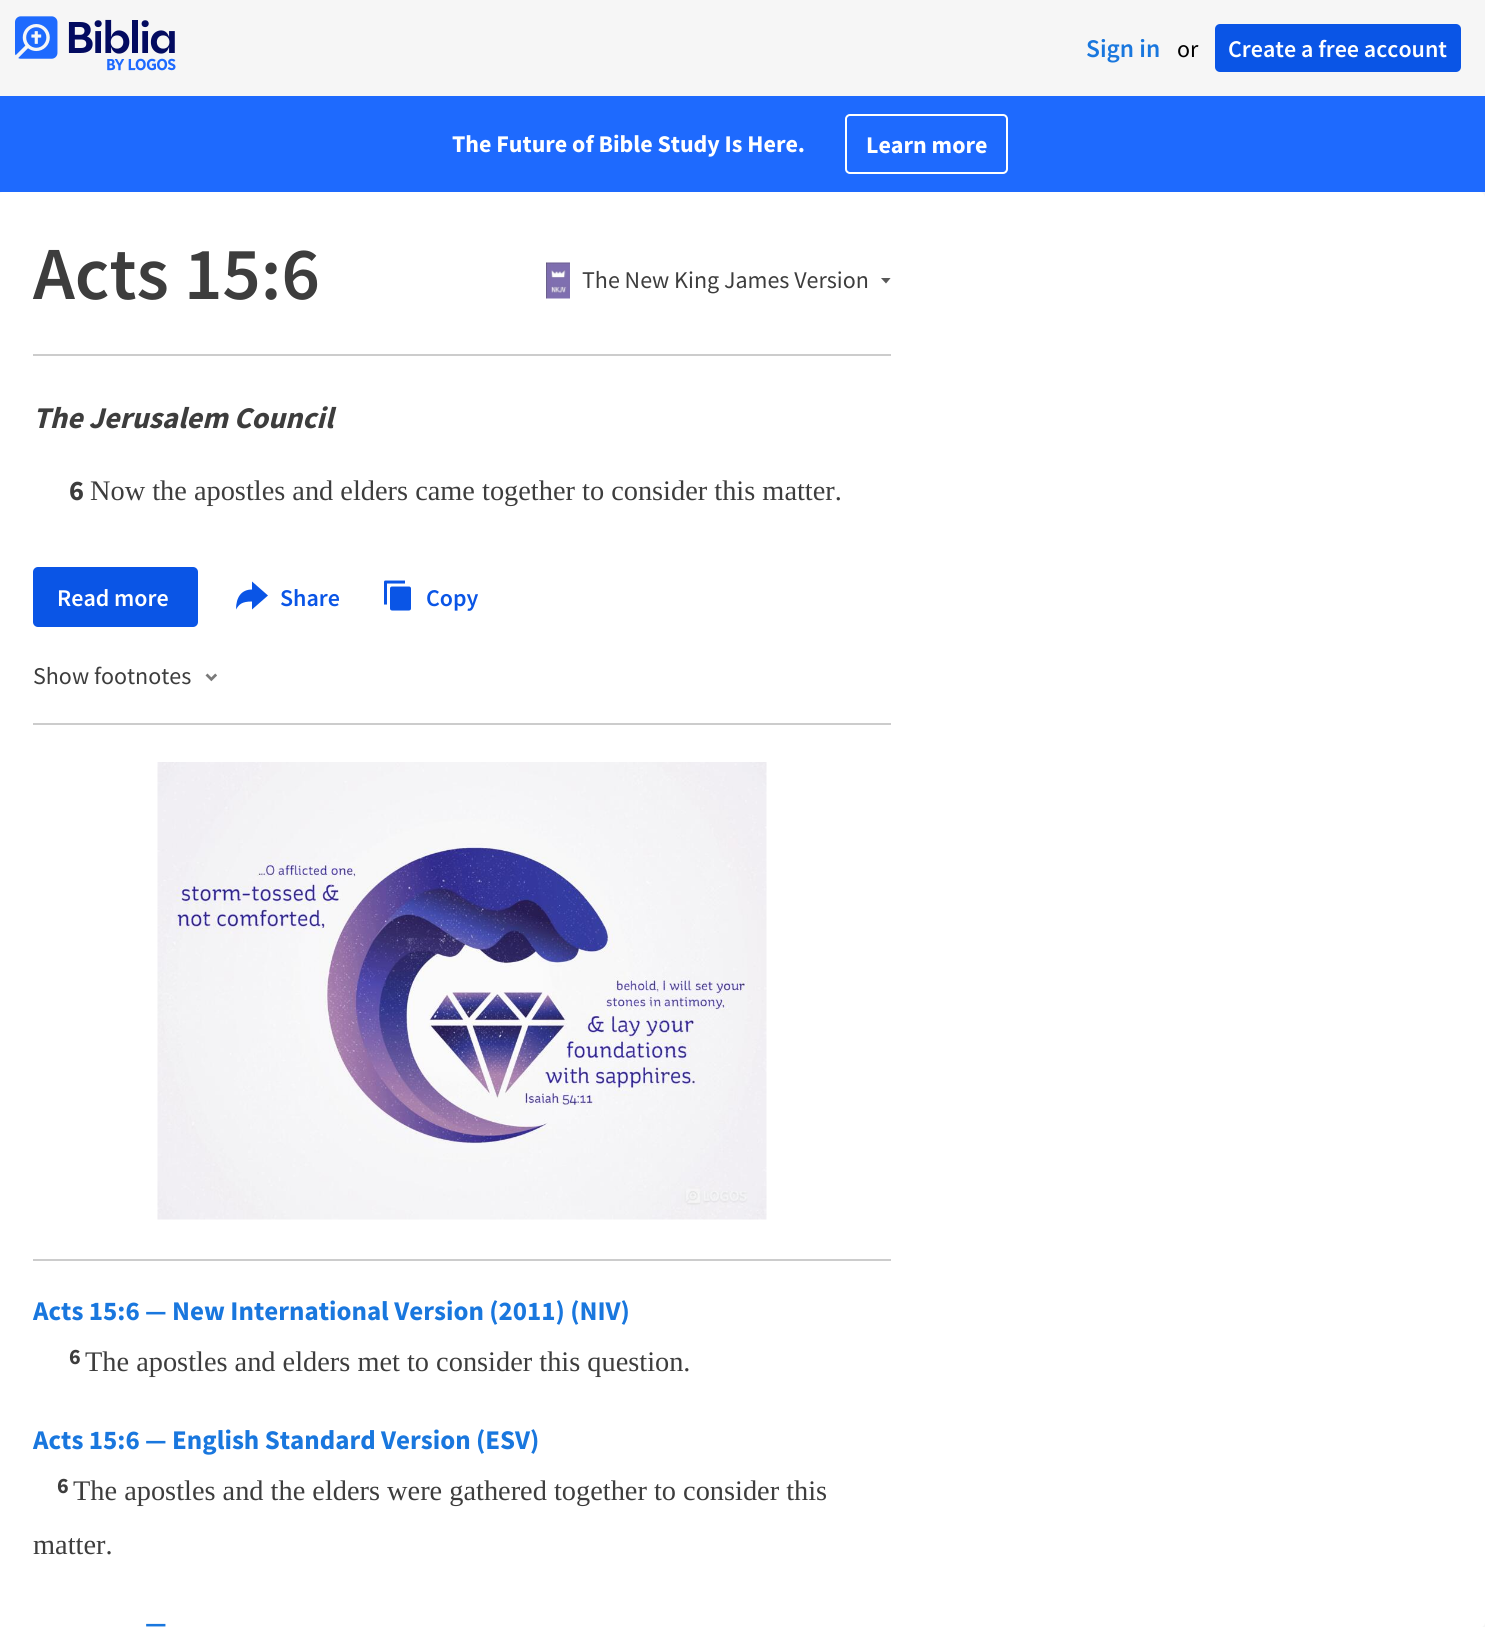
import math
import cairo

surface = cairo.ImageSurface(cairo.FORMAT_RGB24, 1485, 1627)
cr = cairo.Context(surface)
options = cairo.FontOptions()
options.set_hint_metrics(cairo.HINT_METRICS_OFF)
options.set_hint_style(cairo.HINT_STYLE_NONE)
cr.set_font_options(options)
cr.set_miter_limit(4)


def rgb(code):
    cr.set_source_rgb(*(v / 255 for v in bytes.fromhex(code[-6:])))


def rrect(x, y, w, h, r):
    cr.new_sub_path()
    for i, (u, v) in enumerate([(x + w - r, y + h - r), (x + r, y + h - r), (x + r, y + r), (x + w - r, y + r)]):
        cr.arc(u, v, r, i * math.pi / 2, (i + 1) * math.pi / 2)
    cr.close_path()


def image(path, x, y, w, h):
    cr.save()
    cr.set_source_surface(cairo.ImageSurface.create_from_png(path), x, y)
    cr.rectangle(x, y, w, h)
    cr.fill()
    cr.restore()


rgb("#f6f6f6")
cr.paint()
image("img/1.png", 15, 16, 161, 55)
rgb("#0a55e6")
rrect(1215, 24, 246, 48, 5)
cr.fill()
rgb("#1e6afe")
cr.rectangle(0, 96, 1485, 96)
cr.fill()
rrect(846, 115, 161, 58, 4)
rgb("#ffffff")
cr.stroke()
rrect(-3, 192, 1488, 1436, 6)
cr.fill()
rgb("#cccccc")
cr.rectangle(33, 354, 858, 2)
cr.fill()
image("img/2.png", 546, 262, 24, 37)
cr.save()
cr.rectangle(881, 278, 10, 6)
cr.clip()
rgb("#585858")
cr.set_fill_rule(cairo.FILL_RULE_EVEN_ODD)
cr.new_path()
cr.move_to(886, 283.5)
cr.line_to(891, 277.5)
cr.line_to(880.5, 277.5)
cr.close_path()
cr.fill()
cr.restore()
rgb("#0a55e6")
rrect(33, 567, 165, 60, 5)
cr.fill()
cr.set_fill_rule(cairo.FILL_RULE_EVEN_ODD)
cr.new_path()
cr.move_to(252, 589.5)
cr.line_to(252, 581.5)
cr.line_to(268, 595.5)
cr.line_to(252, 609.5)
cr.line_to(252, 601.5)
cr.curve_to(241.5, 601.5, 239, 604.5, 236, 609.5)
cr.curve_to(236, 597, 241.5, 589.5, 252, 589.5)
cr.close_path()
cr.fill()
image("img/3.png", 384, 580, 27, 31)
image("img/4.png", 205, 673, 12, 9)
rgb("#cccccc")
cr.rectangle(33, 723, 858, 2)
cr.fill()
image("img/5.png", 157, 762, 610, 458)
cr.rectangle(33, 1259, 858, 2)
cr.fill()
cr.select_font_face("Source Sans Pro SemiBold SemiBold")
cr.set_font_size(25.5)
rgb("#1977de")
cr.move_to(1086, 57)
cr.show_text("Sign in")
cr.select_font_face("Source Sans Pro")
cr.set_font_size(24)
rgb("#000000")
cr.move_to(1177, 57)
cr.show_text("or")
cr.select_font_face("Source Sans Pro SemiBold SemiBold")
rgb("#ffffff")
cr.move_to(1228, 57)
cr.show_text("Create a free account")
cr.select_font_face("Source Sans Pro", cairo.FONT_SLANT_NORMAL, cairo.FONT_WEIGHT_BOLD)
cr.move_to(452, 152)
cr.show_text("The Future of Bible Study Is Here.")
cr.move_to(866, 153)
cr.show_text("Learn more")
cr.select_font_face("Source Sans Pro SemiBold SemiBold")
cr.set_font_size(75)
rgb("#3d3d3d")
cr.move_to(33, 299)
cr.show_text("Acts 15:6")
cr.select_font_face("Source Sans Pro")
cr.set_font_size(24)
cr.move_to(582, 288)
cr.show_text("The New King James Version")
cr.select_font_face("Source Sans Pro", cairo.FONT_SLANT_ITALIC, cairo.FONT_WEIGHT_BOLD)
cr.set_font_size(30.1)
cr.move_to(33, 428)
cr.show_text("The Jerusalem Council")
cr.select_font_face("Source Sans Pro", cairo.FONT_SLANT_NORMAL, cairo.FONT_WEIGHT_BOLD)
cr.set_font_size(28.35)
cr.move_to(69, 500)
cr.show_text("6")
cr.select_font_face("Liberation Serif")
cr.move_to(90, 500)
cr.show_text("Now the apostles and elders came together to consider this matter.")
cr.select_font_face("Source Sans Pro SemiBold SemiBold")
cr.set_font_size(24)
rgb("#ffffff")
cr.move_to(57, 606)
cr.show_text("Read more")
rgb("#0a55e6")
cr.move_to(280, 606)
cr.show_text("Share")
cr.move_to(426, 606)
cr.show_text("Copy")
cr.select_font_face("Source Sans Pro")
rgb("#3d3d3d")
cr.move_to(33, 684)
cr.show_text("Show footnotes")
cr.select_font_face("Source Sans Pro", cairo.FONT_SLANT_NORMAL, cairo.FONT_WEIGHT_BOLD)
cr.set_font_size(27)
rgb("#1977de")
cr.move_to(33, 1320)
cr.show_text("Acts 15:6 — New International Version (2011) (NIV)")
cr.set_font_size(22)
rgb("#3d3d3d")
cr.move_to(69, 1364)
cr.show_text("6")
cr.select_font_face("Liberation Serif")
cr.set_font_size(28.35)
cr.move_to(85, 1371)
cr.show_text("The apostles and elders met to consider this question.")
cr.select_font_face("Source Sans Pro", cairo.FONT_SLANT_NORMAL, cairo.FONT_WEIGHT_BOLD)
cr.set_font_size(27)
rgb("#1977de")
cr.move_to(33, 1449)
cr.show_text("Acts 15:6 — English Standard Version (ESV)")
cr.set_font_size(22)
rgb("#3d3d3d")
cr.move_to(57, 1493)
cr.show_text("6")
cr.select_font_face("Liberation Serif")
cr.set_font_size(28.35)
cr.move_to(73, 1500)
cr.show_text("The apostles and the elders were gathered together to consider this")
cr.move_to(33, 1554)
cr.show_text("matter.")
cr.select_font_face("Source Sans Pro", cairo.FONT_SLANT_NORMAL, cairo.FONT_WEIGHT_BOLD)
cr.set_font_size(27)
rgb("#1977de")
cr.move_to(145, 1632)
cr.show_text("—")
surface.write_to_png("page.png")
